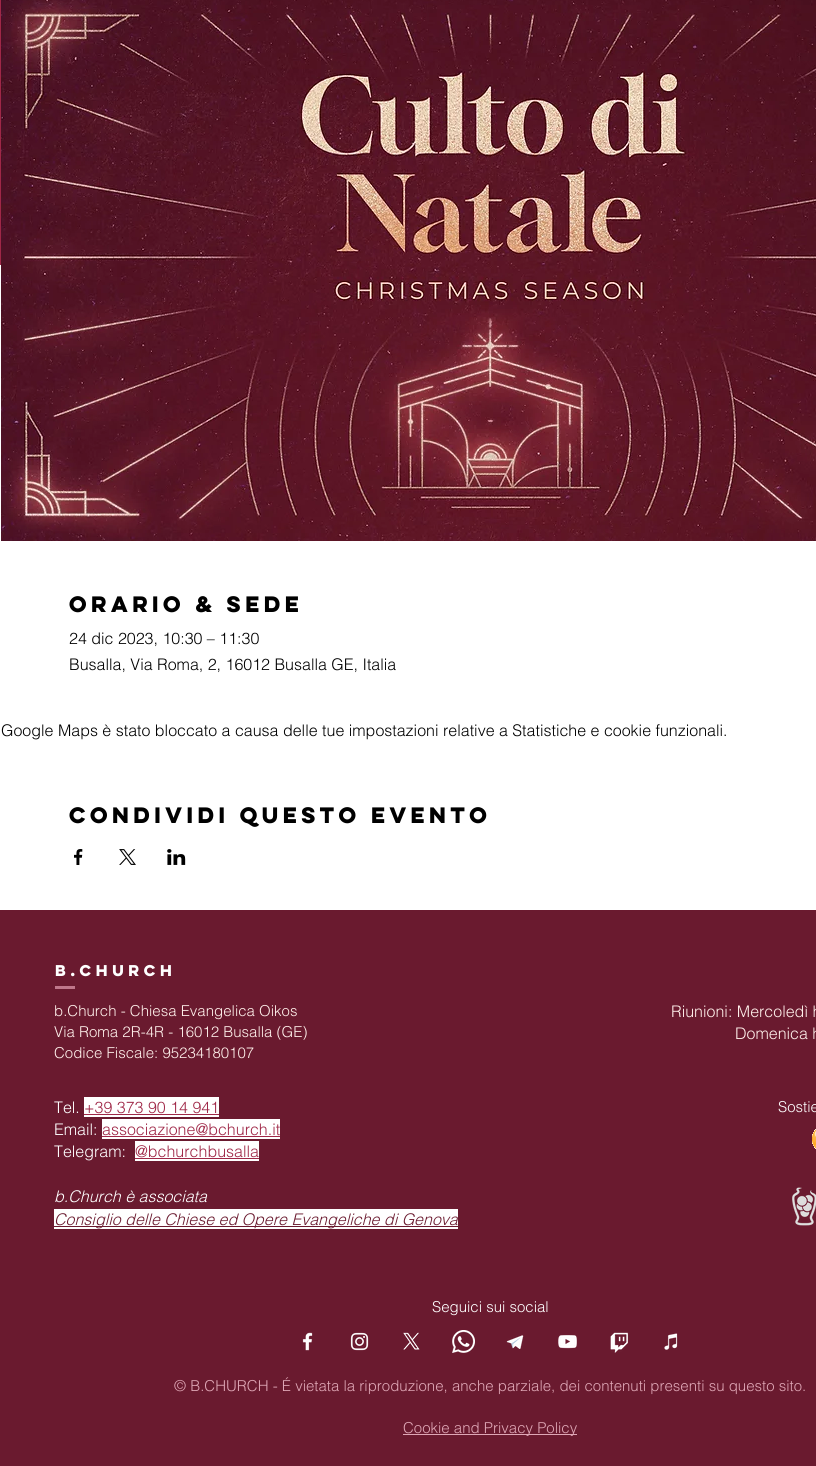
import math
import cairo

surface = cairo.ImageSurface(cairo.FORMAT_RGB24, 816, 1466)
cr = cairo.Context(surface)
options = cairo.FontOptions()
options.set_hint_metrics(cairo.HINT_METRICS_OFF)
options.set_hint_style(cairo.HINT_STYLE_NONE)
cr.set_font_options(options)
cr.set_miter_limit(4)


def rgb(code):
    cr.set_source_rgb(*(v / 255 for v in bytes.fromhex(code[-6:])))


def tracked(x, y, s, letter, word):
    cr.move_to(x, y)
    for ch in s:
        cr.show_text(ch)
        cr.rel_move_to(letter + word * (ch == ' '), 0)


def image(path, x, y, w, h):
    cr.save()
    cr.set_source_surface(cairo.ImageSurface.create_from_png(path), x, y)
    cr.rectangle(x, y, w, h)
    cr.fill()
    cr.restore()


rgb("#ffffff")
cr.paint()
rgb("#9f2747")
cr.rectangle(0, 0, 1, 265)
cr.fill()
image("img/1.png", 1, 0, 815, 541)
image("img/2.png", 74, 849, 9, 16)
image("img/3.png", 119, 849, 17, 16)
image("img/4.png", 167, 849, 19, 16)
for x, y, w, h, color in [
    (0, 910, 816, 556, "#6a1a2f"),
    (55, 986, 20, 3, "#bf778a"),
    (84, 1097, 135, 20, "#ffffff"),
    (84, 1114, 135, 1, "#9f2747"),
    (102, 1119, 178, 20, "#ffffff"),
    (102, 1136, 178, 1, "#9f2747"),
    (135, 1141, 124, 20, "#ffffff"),
    (135, 1158, 124, 1, "#9f2747"),
    (54, 1209, 404, 20, "#ffffff"),
    (54, 1226, 404, 1, "#6a1a2f"),
]:
    rgb(color)
    cr.rectangle(x, y, w, h)
    cr.fill()
image("img/5.png", 812, 1129, 4, 20)
image("img/6.png", 792, 1187, 24, 39)
image("img/7.png", 302, 1332, 11, 19)
image("img/8.png", 350, 1332, 19, 19)
image("img/9.png", 403, 1332, 17, 18)
image("img/10.png", 452, 1330, 23, 23)
image("img/11.png", 506, 1335, 18, 14)
image("img/12.png", 558, 1335, 19, 14)
image("img/13.png", 610, 1332, 19, 21)
image("img/14.png", 664, 1333, 14, 17)
rgb("#dfa7b6")
cr.rectangle(403, 1434, 174, 1)
cr.fill()
cr.select_font_face("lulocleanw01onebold", cairo.FONT_SLANT_NORMAL, cairo.FONT_WEIGHT_BOLD)
cr.set_font_size(20)
rgb("#000000")
cr.move_to(69, 612)
cr.show_text("Orario & Sede")
cr.select_font_face("helvetica Light")
cr.set_font_size(16)
for x, y, s in [
    (69, 644, "24 dic 2023, 10:30 – 11:30"),
    (69, 670, "Busalla, Via Roma, 2, 16012 Busalla GE, Italia"),
    (1, 736, "Google Maps è stato bloccato a causa delle tue impostazioni relative a Statistiche e cookie funzionali."),
]:
    cr.move_to(x, y)
    cr.show_text(s)
cr.select_font_face("lulocleanw01onebold", cairo.FONT_SLANT_NORMAL, cairo.FONT_WEIGHT_BOLD)
cr.set_font_size(20)
cr.move_to(69, 823)
cr.show_text("Condividi questo evento")
cr.set_font_size(14)
rgb("#ffffff")
tracked(55, 976, "B.Church", 1.5, 0)
cr.select_font_face("helvetica Light")
cr.set_font_size(15)
rgb("#fff0eb")
for x, y, s in [
    (54, 1016, "b.Church - Chiesa Evangelica Oikos"),
    (54, 1037, "Via Roma 2R-4R - 16012 Busalla (GE)"),
    (54, 1058, "Codice Fiscale: 95234180107"),
]:
    cr.move_to(x, y)
    cr.show_text(s)
cr.set_font_size(16)
cr.move_to(671, 1017)
cr.show_text("Riunioni: Mercoledì h")
cr.move_to(735, 1039)
cr.show_text("Domenica h")
rgb("#ffffff")
cr.move_to(54, 1113)
cr.show_text("Tel.")
rgb("#9f2747")
cr.move_to(84, 1113)
cr.show_text("+39 373 90 14 941")
rgb("#ffffff")
cr.move_to(54, 1135)
cr.show_text("Email:")
rgb("#9f2747")
cr.move_to(102, 1135)
cr.show_text("associazione@bchurch.it")
rgb("#ffffff")
cr.move_to(54, 1157)
cr.show_text("Telegram:")
rgb("#9f2747")
cr.move_to(135, 1157)
cr.show_text("@bchurchbusalla")
cr.select_font_face("helvetica Light", cairo.FONT_SLANT_ITALIC)
rgb("#ffffff")
cr.move_to(54, 1202)
cr.show_text("b.Church è associata")
rgb("#6a1a2f")
cr.move_to(54, 1225)
cr.show_text("Consiglio delle Chiese ed Opere Evangeliche di Genova")
cr.select_font_face("helvetica Light")
cr.set_font_size(15)
rgb("#ffffff")
cr.move_to(778, 1112)
cr.show_text("Sostie")
cr.move_to(432, 1312)
cr.show_text("Seguici sui social")
rgb("#dfa7b6")
cr.move_to(174, 1391)
cr.show_text("© B.CHURCH - É vietata la riproduzione, anche parziale, dei contenuti presenti su questo sito.")
cr.move_to(403, 1433)
cr.show_text("Cookie and Privacy Policy")
surface.write_to_png("page.png")
